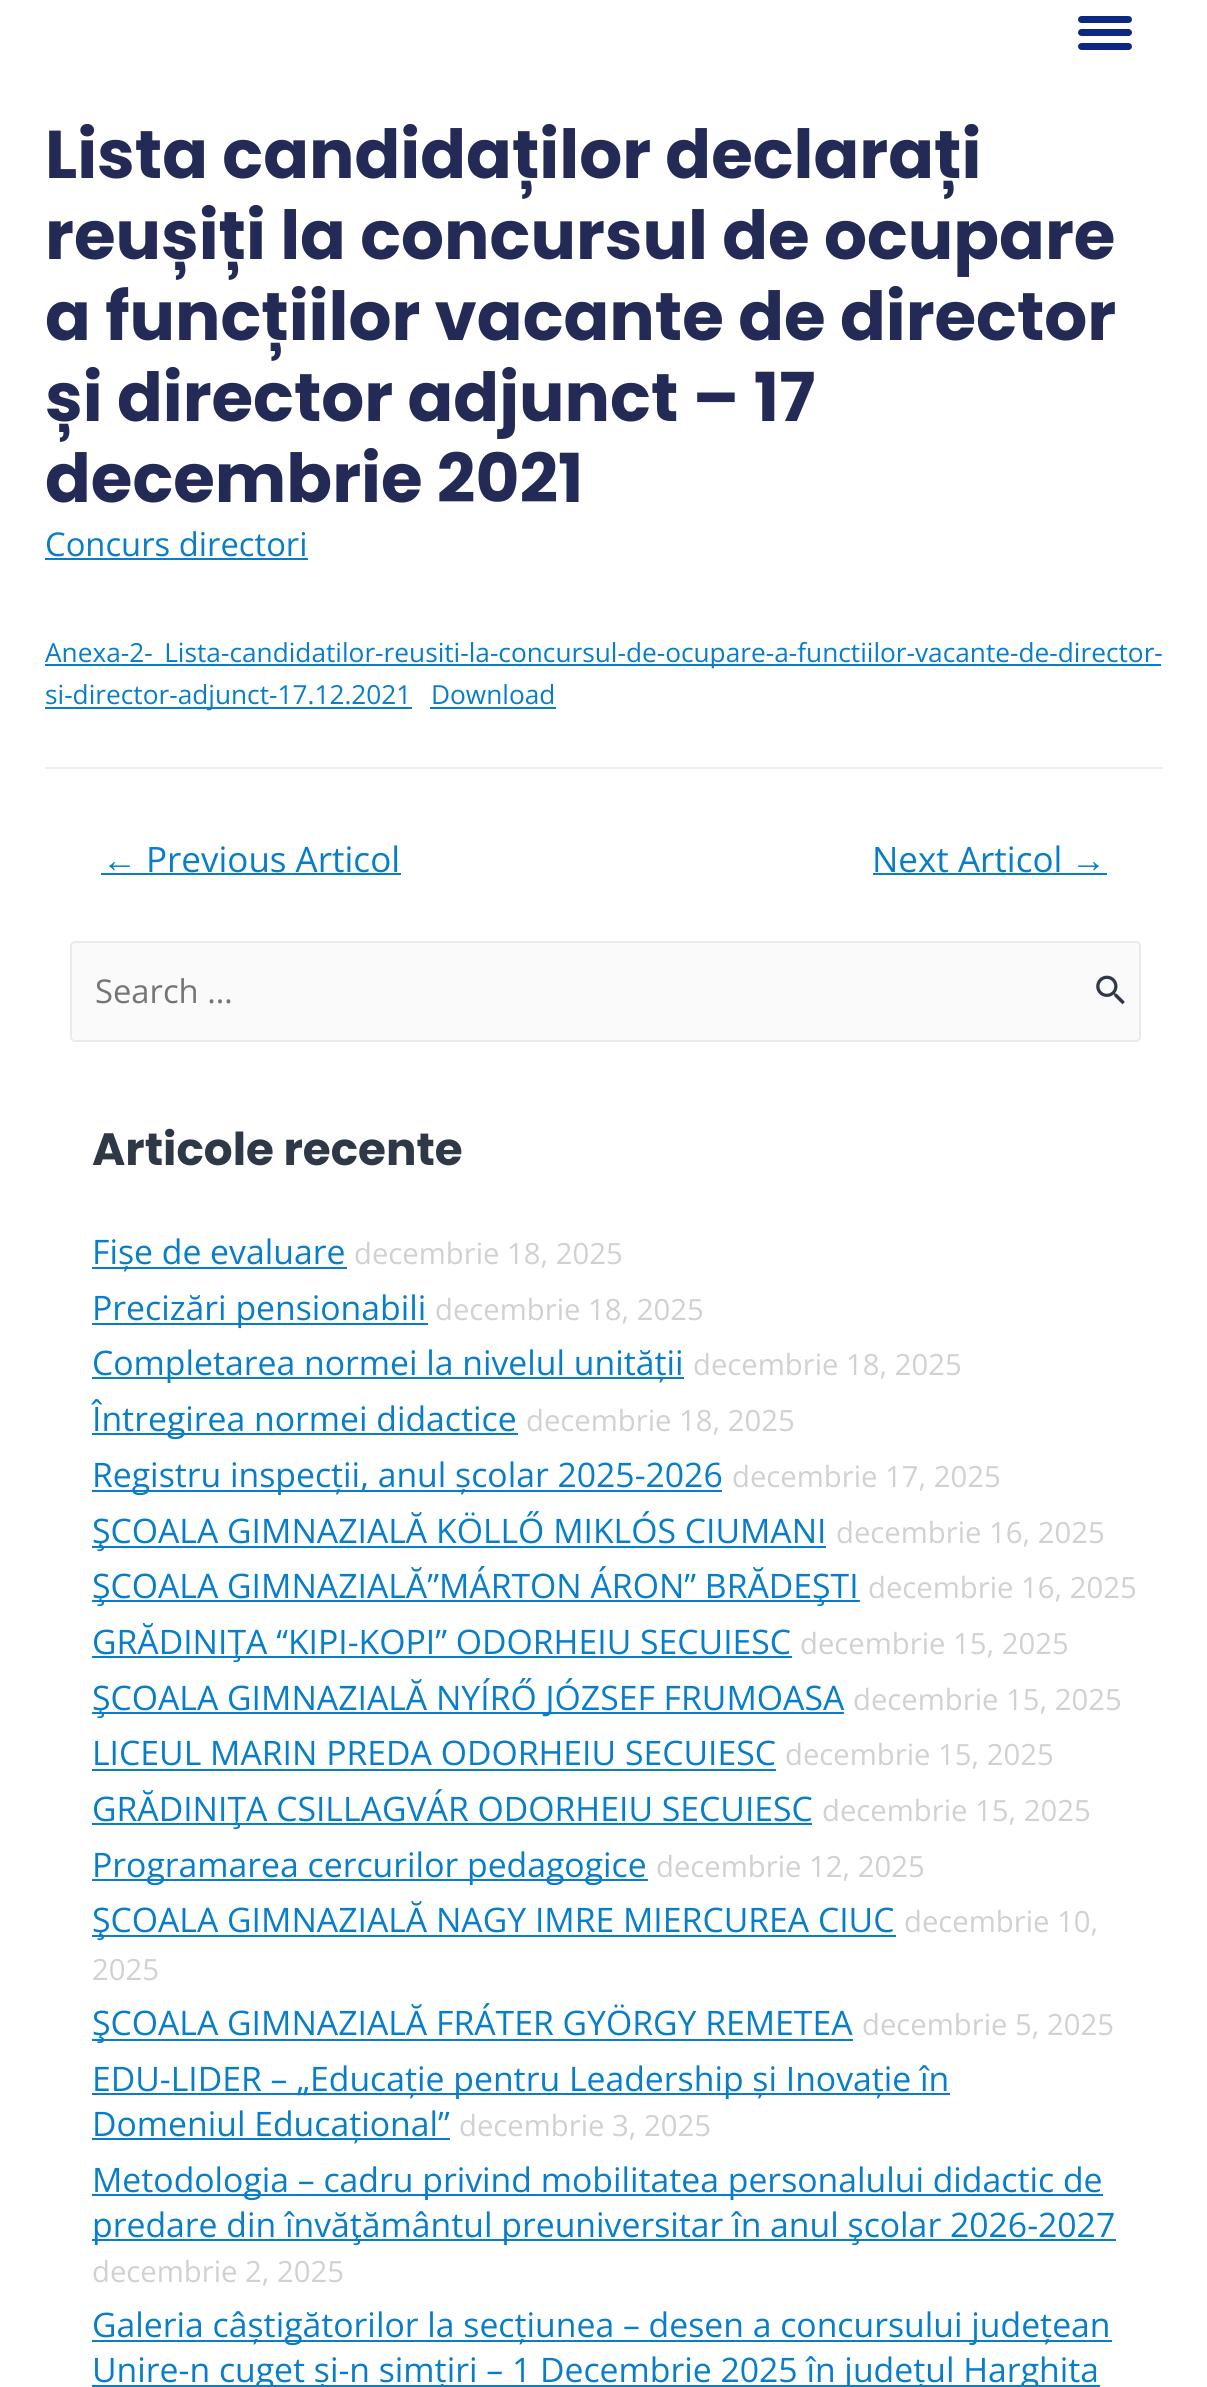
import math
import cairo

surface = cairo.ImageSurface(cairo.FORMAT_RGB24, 1207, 2387)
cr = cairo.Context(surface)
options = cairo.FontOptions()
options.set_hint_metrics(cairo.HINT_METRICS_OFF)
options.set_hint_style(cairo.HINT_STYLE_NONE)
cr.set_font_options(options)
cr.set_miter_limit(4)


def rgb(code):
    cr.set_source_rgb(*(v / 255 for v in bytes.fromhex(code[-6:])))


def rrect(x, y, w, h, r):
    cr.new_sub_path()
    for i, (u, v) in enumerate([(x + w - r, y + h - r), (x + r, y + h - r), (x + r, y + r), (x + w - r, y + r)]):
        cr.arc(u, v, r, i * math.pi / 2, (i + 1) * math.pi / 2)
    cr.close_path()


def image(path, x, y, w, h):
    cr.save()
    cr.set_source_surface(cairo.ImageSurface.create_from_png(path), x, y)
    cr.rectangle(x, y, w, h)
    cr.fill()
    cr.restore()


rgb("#ffffff")
cr.paint()
rgb("#0d2880")
rrect(1078, 16, 54, 7, 3.5)
cr.fill()
rrect(1078, 29, 54, 7, 3.5)
cr.fill()
rrect(1078, 43, 54, 7, 3.5)
cr.fill()
for x, y, w, h, color in [
    (45, 558, 263, 2, "#087dc9"),
    (45, 664, 1116, 2, "#087dc9"),
    (45, 707, 367, 2, "#087dc9"),
    (430, 707, 126, 2, "#087dc9"),
    (45, 767, 1118, 2, "#eeeeee"),
    (101, 873, 300, 2, "#087dc9"),
    (873, 873, 234, 2, "#087dc9"),
]:
    rgb(color)
    cr.rectangle(x, y, w, h)
    cr.fill()
rgb("#fafafa")
rrect(71, 942, 1069, 99, 4)
cr.fill_preserve()
rgb("#eaeaea")
cr.stroke()
image("img/1.png", 1096, 975, 29, 30)
for x, y, w, h, color in [
    (92, 1267, 255, 2, "#087dc9"),
    (92, 1323, 336, 2, "#087dc9"),
    (92, 1377, 592, 2, "#087dc9"),
    (92, 1433, 426, 2, "#087dc9"),
    (92, 1490, 630, 2, "#087dc9"),
    (92, 1546, 734, 2, "#087dc9"),
    (92, 1600, 768, 2, "#087dc9"),
    (92, 1656, 700, 2, "#087dc9"),
    (92, 1712, 752, 2, "#087dc9"),
    (92, 1769, 684, 2, "#087dc9"),
    (92, 1823, 720, 2, "#087dc9"),
    (92, 1879, 556, 2, "#087dc9"),
    (92, 1935, 804, 2, "#087dc9"),
    (92, 2039, 761, 2, "#087dc9"),
    (92, 2093, 858, 2, "#087dc9"),
    (92, 2138, 358, 2, "#087dc9"),
    (92, 2194, 1011, 2, "#087dc9"),
    (92, 2239, 1024, 2, "#087dc9"),
    (92, 2340, 1020, 2, "#087dc9"),
    (92, 2385, 1008, 2, "#087dc9"),
]:
    rgb(color)
    cr.rectangle(x, y, w, h)
    cr.fill()
cr.select_font_face("Poppins", cairo.FONT_SLANT_NORMAL, cairo.FONT_WEIGHT_BOLD)
cr.set_font_size(67.5)
rgb("#242a56")
for x, y, s in [
    (45, 178, "Lista candidaților declarați"),
    (45, 259, "reușiți la concursul de ocupare"),
    (45, 340, "a funcțiilor vacante de director"),
    (45, 421, "și director adjunct – 17"),
    (45, 502, "decembrie 2021"),
]:
    cr.move_to(x, y)
    cr.show_text(s)
cr.select_font_face("Open Sans")
cr.set_font_size(32.75)
rgb("#087dc9")
cr.move_to(45, 556)
cr.show_text("Concurs directori")
cr.set_font_size(26.25)
for x, y, s in [
    (45, 662, "Anexa-2-_Lista-candidatilor-reusiti-la-concursul-de-ocupare-a-functiilor-vacante-de-director-"),
    (45, 704, "si-director-adjunct-17.12.2021"),
    (431, 704, "Download"),
]:
    cr.move_to(x, y)
    cr.show_text(s)
cr.select_font_face("Liberation Sans")
cr.set_font_size(35)
cr.move_to(102, 872)
cr.show_text("←")
cr.select_font_face("Open Sans")
cr.move_to(146, 872)
cr.show_text("Previous Articol")
cr.move_to(872, 872)
cr.show_text("Next Articol")
cr.select_font_face("Liberation Sans")
cr.move_to(1071, 872)
cr.show_text("→")
cr.select_font_face("Open Sans")
cr.set_font_size(32.75)
rgb("#757575")
cr.move_to(95, 1003)
cr.show_text("Search …")
cr.select_font_face("Poppins", cairo.FONT_SLANT_NORMAL, cairo.FONT_WEIGHT_BOLD)
cr.set_font_size(45.25)
rgb("#2f3846")
cr.move_to(92, 1165)
cr.show_text("Articole recente")
cr.select_font_face("Open Sans")
cr.set_font_size(33.75)
rgb("#087dc9")
cr.move_to(92, 1264)
cr.show_text("Fișe de evaluare")
cr.set_font_size(29.25)
rgb("#d1d1d1")
cr.move_to(354, 1264)
cr.show_text("decembrie 18, 2025")
cr.set_font_size(33.75)
rgb("#087dc9")
cr.move_to(92, 1320)
cr.show_text("Precizări pensionabili")
cr.set_font_size(29.25)
rgb("#d1d1d1")
cr.move_to(435, 1320)
cr.show_text("decembrie 18, 2025")
cr.set_font_size(33.75)
rgb("#087dc9")
cr.move_to(92, 1375)
cr.show_text("Completarea normei la nivelul unității")
cr.set_font_size(29.25)
rgb("#d1d1d1")
cr.move_to(693, 1375)
cr.show_text("decembrie 18, 2025")
cr.set_font_size(33.75)
rgb("#087dc9")
cr.move_to(92, 1431)
cr.show_text("Întregirea normei didactice")
cr.set_font_size(29.25)
rgb("#d1d1d1")
cr.move_to(526, 1431)
cr.show_text("decembrie 18, 2025")
cr.set_font_size(33.75)
rgb("#087dc9")
cr.move_to(92, 1487)
cr.show_text("Registru inspecții, anul școlar 2025-2026")
cr.set_font_size(29.25)
rgb("#d1d1d1")
cr.move_to(732, 1487)
cr.show_text("decembrie 17, 2025")
cr.set_font_size(33.75)
rgb("#087dc9")
cr.move_to(92, 1543)
cr.show_text("ŞCOALA GIMNAZIALĂ KÖLLŐ MIKLÓS CIUMANI")
cr.set_font_size(29.25)
rgb("#d1d1d1")
cr.move_to(836, 1543)
cr.show_text("decembrie 16, 2025")
cr.set_font_size(33.75)
rgb("#087dc9")
cr.move_to(92, 1598)
cr.show_text("ŞCOALA GIMNAZIALĂ”MÁRTON ÁRON” BRĂDEŞTI")
cr.set_font_size(29.25)
rgb("#d1d1d1")
cr.move_to(868, 1598)
cr.show_text("decembrie 16, 2025")
cr.set_font_size(33.75)
rgb("#087dc9")
cr.move_to(92, 1654)
cr.show_text("GRĂDINIŢA “KIPI-KOPI” ODORHEIU SECUIESC")
cr.set_font_size(29.25)
rgb("#d1d1d1")
cr.move_to(800, 1654)
cr.show_text("decembrie 15, 2025")
cr.set_font_size(33.75)
rgb("#087dc9")
cr.move_to(92, 1710)
cr.show_text("ŞCOALA GIMNAZIALĂ NYÍRŐ JÓZSEF FRUMOASA")
cr.set_font_size(29.25)
rgb("#d1d1d1")
cr.move_to(853, 1710)
cr.show_text("decembrie 15, 2025")
cr.set_font_size(33.75)
rgb("#087dc9")
cr.move_to(92, 1765)
cr.show_text("LICEUL MARIN PREDA ODORHEIU SECUIESC")
cr.set_font_size(29.25)
rgb("#d1d1d1")
cr.move_to(785, 1765)
cr.show_text("decembrie 15, 2025")
cr.set_font_size(33.75)
rgb("#087dc9")
cr.move_to(92, 1821)
cr.show_text("GRĂDINIŢA CSILLAGVÁR ODORHEIU SECUIESC")
cr.set_font_size(29.25)
rgb("#d1d1d1")
cr.move_to(822, 1821)
cr.show_text("decembrie 15, 2025")
cr.set_font_size(33.75)
rgb("#087dc9")
cr.move_to(92, 1877)
cr.show_text("Programarea cercurilor pedagogice")
cr.set_font_size(29.25)
rgb("#d1d1d1")
cr.move_to(656, 1877)
cr.show_text("decembrie 12, 2025")
cr.set_font_size(33.75)
rgb("#087dc9")
cr.move_to(92, 1932)
cr.show_text("ŞCOALA GIMNAZIALĂ NAGY IMRE MIERCUREA CIUC")
cr.set_font_size(29.25)
rgb("#d1d1d1")
cr.move_to(904, 1932)
cr.show_text("decembrie 10,")
cr.move_to(92, 1980)
cr.show_text("2025")
cr.set_font_size(33.75)
rgb("#087dc9")
cr.move_to(92, 2035)
cr.show_text("ŞCOALA GIMNAZIALĂ FRÁTER GYÖRGY REMETEA")
cr.set_font_size(29.25)
rgb("#d1d1d1")
cr.move_to(862, 2035)
cr.show_text("decembrie 5, 2025")
cr.set_font_size(33.75)
rgb("#087dc9")
cr.move_to(92, 2091)
cr.show_text("EDU-LIDER – „Educație pentru Leadership și Inovație în")
cr.move_to(92, 2136)
cr.show_text("Domeniul Educațional”")
cr.set_font_size(29.25)
rgb("#d1d1d1")
cr.move_to(459, 2136)
cr.show_text("decembrie 3, 2025")
cr.set_font_size(33.75)
rgb("#087dc9")
cr.move_to(92, 2192)
cr.show_text("Metodologia – cadru privind mobilitatea personalului didactic de")
cr.move_to(92, 2237)
cr.show_text("predare din învăţământul preuniversitar în anul şcolar 2026-2027")
cr.set_font_size(29.25)
rgb("#d1d1d1")
cr.move_to(92, 2282)
cr.show_text("decembrie 2, 2025")
cr.set_font_size(33.75)
rgb("#087dc9")
cr.move_to(92, 2337)
cr.show_text("Galeria câștigătorilor la secțiunea – desen a concursului județean")
cr.move_to(92, 2382)
cr.show_text("Unire-n cuget și-n simțiri – 1 Decembrie 2025 în județul Harghita")
surface.write_to_png("page.png")
